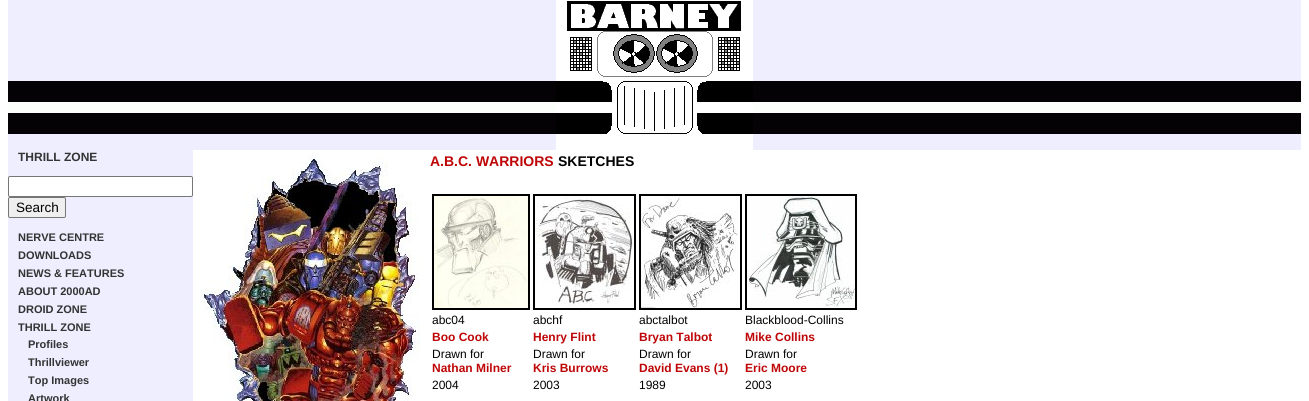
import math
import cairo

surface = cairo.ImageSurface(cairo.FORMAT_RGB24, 1309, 401)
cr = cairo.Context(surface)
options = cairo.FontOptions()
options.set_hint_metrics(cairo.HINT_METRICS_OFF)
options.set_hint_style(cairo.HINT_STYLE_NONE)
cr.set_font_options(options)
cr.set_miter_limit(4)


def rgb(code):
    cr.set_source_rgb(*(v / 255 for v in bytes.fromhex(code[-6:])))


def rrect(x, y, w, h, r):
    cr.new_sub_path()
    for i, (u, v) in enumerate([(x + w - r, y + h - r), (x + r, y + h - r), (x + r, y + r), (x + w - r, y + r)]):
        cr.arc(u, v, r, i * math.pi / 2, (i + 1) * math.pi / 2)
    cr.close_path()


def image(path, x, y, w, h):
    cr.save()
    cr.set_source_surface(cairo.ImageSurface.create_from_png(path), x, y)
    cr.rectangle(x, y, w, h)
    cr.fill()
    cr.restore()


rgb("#ffffff")
cr.paint()
rgb("#eeeeff")
cr.rectangle(8, 0, 1293, 150)
cr.fill()
image("img/1.png", 8, 81, 1293, 53)
image("img/2.png", 556, 0, 197, 150)
cr.rectangle(8, 150, 185, 251)
cr.fill()
rgb("#ffffff")
rrect(8.5, 176.5, 184, 20, 1.5)
cr.fill_preserve()
rgb("#767676")
cr.set_line_width(1)
cr.stroke()
rgb("#efefef")
rrect(8.5, 197.5, 57, 20, 1.5)
cr.fill_preserve()
rgb("#767676")
cr.stroke()
image("img/3.png", 196, 153, 224, 248)
cr.rectangle(433, 195, 96, 114)
rgb("#000000")
cr.set_line_width(2)
cr.stroke()
image("img/4.png", 434, 196, 94, 112)
cr.rectangle(534, 195, 101, 114)
cr.stroke()
image("img/5.png", 535, 196, 99, 112)
cr.rectangle(640, 195, 101, 114)
cr.stroke()
image("img/6.png", 641, 196, 98, 112)
cr.rectangle(746, 195, 110, 114)
cr.stroke()
image("img/7.png", 747, 196, 108, 112)
cr.select_font_face("Liberation Sans", cairo.FONT_SLANT_NORMAL, cairo.FONT_WEIGHT_BOLD)
cr.set_font_size(12)
rgb("#333333")
cr.move_to(18, 161)
cr.show_text("THRILL ZONE")
cr.select_font_face("Liberation Sans")
cr.set_font_size(13.5)
rgb("#000000")
cr.move_to(16, 212)
cr.show_text("Search")
cr.select_font_face("Liberation Sans", cairo.FONT_SLANT_NORMAL, cairo.FONT_WEIGHT_BOLD)
cr.set_font_size(11)
rgb("#333333")
for x, y, s in [
    (18, 241, "NERVE CENTRE"),
    (18, 259, "DOWNLOADS"),
    (18, 277, "NEWS & FEATURES"),
    (18, 295, "ABOUT 2000AD"),
    (18, 313, "DROID ZONE"),
    (18, 331, "THRILL ZONE"),
    (28, 348, "Profiles"),
    (28, 366, "Thrillviewer"),
    (28, 384, "Top Images"),
    (28, 402, "Artwork"),
]:
    cr.move_to(x, y)
    cr.show_text(s)
cr.set_font_size(14)
rgb("#be0507")
cr.move_to(430, 166)
cr.show_text("A.B.C. WARRIORS")
rgb("#000000")
cr.move_to(558, 166)
cr.show_text("SKETCHES")
cr.select_font_face("Liberation Sans")
cr.set_font_size(12)
for x, y, s in [
    (432, 324, "abc04"),
    (533, 324, "abchf"),
    (639, 324, "abctalbot"),
    (745, 324, "Blackblood-Collins"),
]:
    cr.move_to(x, y)
    cr.show_text(s)
cr.select_font_face("Liberation Sans", cairo.FONT_SLANT_NORMAL, cairo.FONT_WEIGHT_BOLD)
rgb("#be0507")
for x, y, s in [
    (432, 341, "Boo Cook"),
    (533, 341, "Henry Flint"),
    (639, 341, "Bryan Talbot"),
    (745, 341, "Mike Collins"),
]:
    cr.move_to(x, y)
    cr.show_text(s)
cr.select_font_face("Liberation Sans")
rgb("#000000")
cr.move_to(432, 358)
cr.show_text("Drawn for")
cr.select_font_face("Liberation Sans", cairo.FONT_SLANT_NORMAL, cairo.FONT_WEIGHT_BOLD)
rgb("#be0507")
cr.move_to(432, 372)
cr.show_text("Nathan Milner")
cr.select_font_face("Liberation Sans")
rgb("#000000")
cr.move_to(533, 358)
cr.show_text("Drawn for")
cr.select_font_face("Liberation Sans", cairo.FONT_SLANT_NORMAL, cairo.FONT_WEIGHT_BOLD)
rgb("#be0507")
cr.move_to(533, 372)
cr.show_text("Kris Burrows")
cr.select_font_face("Liberation Sans")
rgb("#000000")
cr.move_to(639, 358)
cr.show_text("Drawn for")
cr.select_font_face("Liberation Sans", cairo.FONT_SLANT_NORMAL, cairo.FONT_WEIGHT_BOLD)
rgb("#be0507")
cr.move_to(639, 372)
cr.show_text("David Evans (1)")
cr.select_font_face("Liberation Sans")
rgb("#000000")
cr.move_to(745, 358)
cr.show_text("Drawn for")
cr.select_font_face("Liberation Sans", cairo.FONT_SLANT_NORMAL, cairo.FONT_WEIGHT_BOLD)
rgb("#be0507")
cr.move_to(745, 372)
cr.show_text("Eric Moore")
cr.select_font_face("Liberation Sans")
rgb("#000000")
for x, y, s in [
    (432, 389, "2004"),
    (533, 389, "2003"),
    (639, 389, "1989"),
    (745, 389, "2003"),
]:
    cr.move_to(x, y)
    cr.show_text(s)
surface.write_to_png("page.png")
